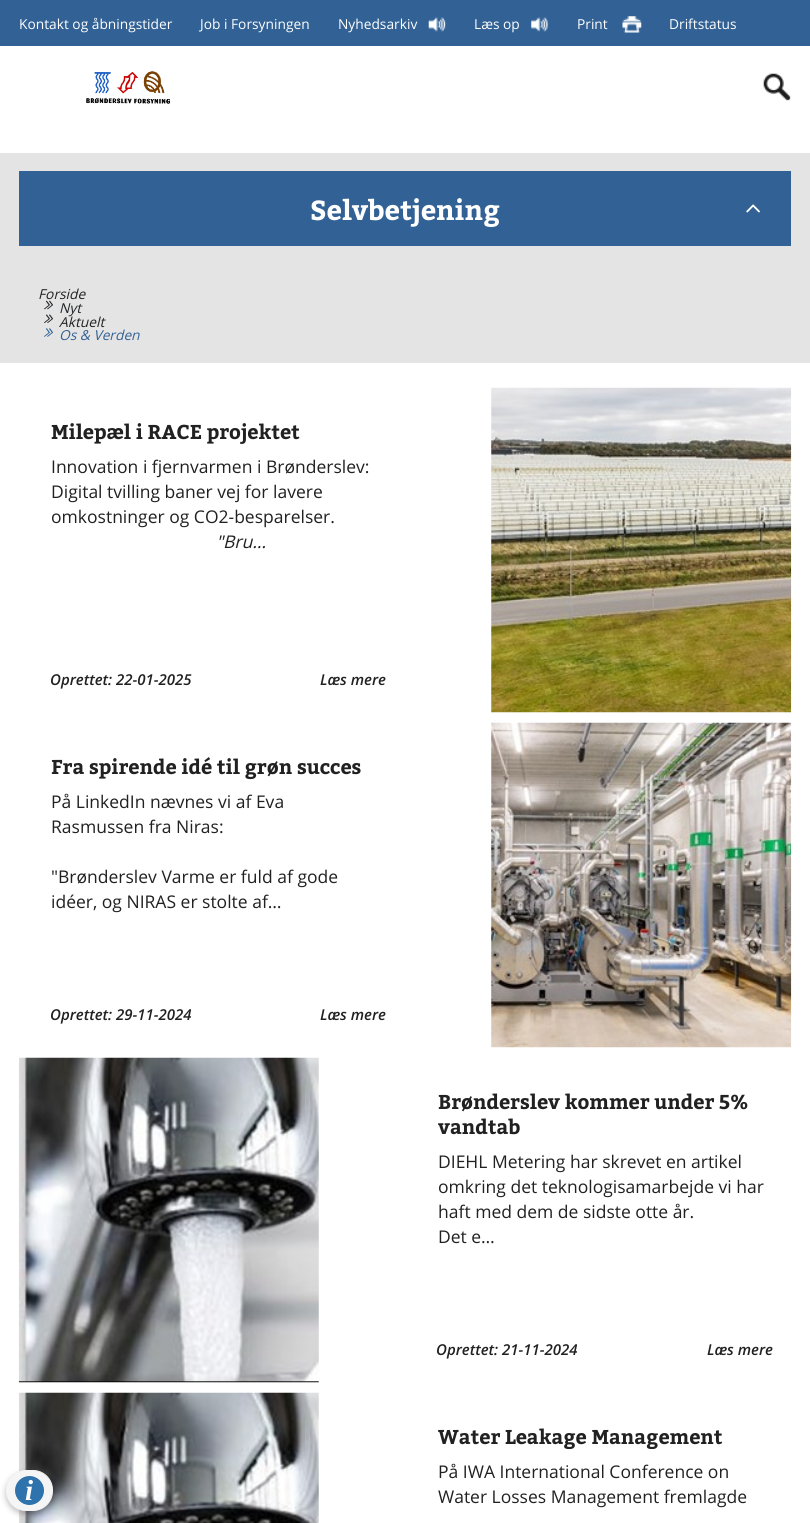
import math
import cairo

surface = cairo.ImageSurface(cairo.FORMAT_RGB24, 810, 1523)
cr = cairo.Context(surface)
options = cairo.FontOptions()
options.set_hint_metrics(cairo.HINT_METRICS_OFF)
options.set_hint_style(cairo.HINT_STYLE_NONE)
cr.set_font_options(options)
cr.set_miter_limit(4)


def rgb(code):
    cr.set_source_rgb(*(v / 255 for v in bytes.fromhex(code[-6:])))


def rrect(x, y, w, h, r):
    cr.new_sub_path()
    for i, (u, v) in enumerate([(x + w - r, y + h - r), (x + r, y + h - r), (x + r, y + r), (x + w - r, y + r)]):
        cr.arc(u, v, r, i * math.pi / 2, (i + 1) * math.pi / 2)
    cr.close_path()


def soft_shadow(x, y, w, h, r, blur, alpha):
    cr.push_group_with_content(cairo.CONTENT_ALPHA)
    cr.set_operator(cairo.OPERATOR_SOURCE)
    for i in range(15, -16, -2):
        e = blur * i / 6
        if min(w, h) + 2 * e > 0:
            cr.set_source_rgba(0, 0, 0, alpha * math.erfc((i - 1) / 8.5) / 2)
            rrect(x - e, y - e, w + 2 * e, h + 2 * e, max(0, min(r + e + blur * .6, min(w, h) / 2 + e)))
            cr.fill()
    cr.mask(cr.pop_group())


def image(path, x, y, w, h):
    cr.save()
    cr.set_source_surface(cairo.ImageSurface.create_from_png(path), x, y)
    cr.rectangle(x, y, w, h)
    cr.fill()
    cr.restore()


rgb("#e4e4e4")
cr.paint()
rgb("#326295")
cr.rectangle(0, 0, 810, 46)
cr.fill()
image("img/1.png", 428, 17, 18, 15)
image("img/2.png", 531, 17, 18, 15)
image("img/3.png", 622, 16, 20, 17)
rgb("#ffffff")
cr.rectangle(0, 46, 810, 107)
cr.fill()
image("img/4.png", 86, 71, 84, 33)
image("img/5.png", 763, 73, 28, 28)
rgb("#326295")
cr.rectangle(19, 171, 772, 75)
cr.fill()
image("img/6.png", 746, 204, 14, 9)
image("img/7.png", 44, 300, 9, 10)
image("img/8.png", 44, 314, 10, 9)
image("img/9.png", 44, 328, 10, 9)
rgb("#ffffff")
cr.rectangle(0, 363, 810, 1160)
cr.fill()
image("img/13.png", 19, 1392, 300, 131)
rgb("#000000")
soft_shadow(6, 1473, 47, 41, 20, 3, 0.26)
rgb("#f5f5f5")
rrect(6.5, 1470.5, 46, 40, 19.5)
cr.fill_preserve()
rgb("#f2f2f2")
cr.set_line_width(1)
cr.stroke()
rgb("#2e73ab")
cr.arc(29.5, 1490.5, 14.5, 0, 2 * math.pi)
cr.fill()
image("img/10.png", 491, 387, 301, 326)
image("img/11.png", 491, 722, 301, 326)
image("img/12.png", 18, 1057, 301, 326)
cr.select_font_face("Open Sans")
cr.set_font_size(13.75)
rgb("#ffffff")
for x, y, s in [
    (19, 29, "Kontakt og åbningstider"),
    (200, 29, "Job i Forsyningen"),
    (338, 29, "Nyhedsarkiv"),
    (474, 29, "Læs op"),
    (577, 29, "Print"),
    (669, 29, "Driftstatus"),
]:
    cr.move_to(x, y)
    cr.show_text(s)
cr.select_font_face("Bitter", cairo.FONT_SLANT_NORMAL, cairo.FONT_WEIGHT_BOLD)
cr.set_font_size(27.5)
cr.move_to(310, 220)
cr.show_text("Selvbetjening")
cr.select_font_face("Open Sans", cairo.FONT_SLANT_ITALIC)
cr.set_font_size(13.75)
rgb("#212121")
cr.move_to(38, 299)
cr.show_text("Forside")
rgb("#212529")
cr.move_to(59, 313)
cr.show_text("Nyt")
rgb("#212121")
cr.move_to(59, 327)
cr.show_text("Aktuelt")
rgb("#326295")
cr.move_to(59, 340)
cr.show_text("Os & Verden")
cr.select_font_face("Liberation Serif", cairo.FONT_SLANT_ITALIC, cairo.FONT_WEIGHT_BOLD)
cr.set_font_size(29)
rgb("#ffffff")
cr.move_to(25, 1500)
cr.show_text("i")
cr.select_font_face("Bitter", cairo.FONT_SLANT_NORMAL, cairo.FONT_WEIGHT_BOLD)
cr.set_font_size(20)
rgb("#212121")
cr.move_to(51, 439)
cr.show_text("Milepæl i RACE projektet")
cr.select_font_face("Open Sans")
cr.set_font_size(17.5)
for x, y, s in [
    (51, 473, "Innovation i fjernvarmen i Brønderslev:"),
    (51, 498, "Digital tvilling baner vej for lavere"),
    (51, 523, "omkostninger og CO2-besparelser."),
]:
    cr.move_to(x, y)
    cr.show_text(s)
cr.select_font_face("Open Sans", cairo.FONT_SLANT_ITALIC)
cr.move_to(216, 548)
cr.show_text("\"Bru…")
cr.select_font_face("Open Sans SemiBold", cairo.FONT_SLANT_ITALIC)
cr.set_font_size(15)
cr.move_to(50, 685)
cr.show_text("Oprettet: 22-01-2025")
cr.move_to(320, 685)
cr.show_text("Læs mere")
cr.select_font_face("Bitter", cairo.FONT_SLANT_NORMAL, cairo.FONT_WEIGHT_BOLD)
cr.set_font_size(20)
cr.move_to(51, 774)
cr.show_text("Fra spirende idé til grøn succes")
cr.select_font_face("Open Sans")
cr.set_font_size(17.5)
for x, y, s in [
    (51, 808, "På LinkedIn nævnes vi af Eva"),
    (51, 833, "Rasmussen fra Niras:"),
    (51, 883, "\"Brønderslev Varme er fuld af gode"),
    (51, 908, "idéer, og NIRAS er stolte af…"),
]:
    cr.move_to(x, y)
    cr.show_text(s)
cr.select_font_face("Open Sans SemiBold", cairo.FONT_SLANT_ITALIC)
cr.set_font_size(15)
cr.move_to(50, 1020)
cr.show_text("Oprettet: 29-11-2024")
cr.move_to(320, 1020)
cr.show_text("Læs mere")
cr.select_font_face("Bitter", cairo.FONT_SLANT_NORMAL, cairo.FONT_WEIGHT_BOLD)
cr.set_font_size(20)
cr.move_to(438, 1109)
cr.show_text("Brønderslev kommer under 5%")
cr.move_to(438, 1134)
cr.show_text("vandtab")
cr.select_font_face("Open Sans")
cr.set_font_size(17.5)
for x, y, s in [
    (438, 1168, "DIEHL Metering har skrevet en artikel"),
    (438, 1193, "omkring det teknologisamarbejde vi har"),
    (438, 1218, "haft med dem de sidste otte år."),
    (438, 1243, "Det e…"),
]:
    cr.move_to(x, y)
    cr.show_text(s)
cr.select_font_face("Open Sans SemiBold", cairo.FONT_SLANT_ITALIC)
cr.set_font_size(15)
cr.move_to(436, 1355)
cr.show_text("Oprettet: 21-11-2024")
cr.move_to(707, 1355)
cr.show_text("Læs mere")
cr.save()
cr.rectangle(438, 1424, 328, 25)
cr.clip()
cr.select_font_face("Bitter", cairo.FONT_SLANT_NORMAL, cairo.FONT_WEIGHT_BOLD)
cr.set_font_size(20)
cr.move_to(438, 1444)
cr.show_text("Water Leakage Management")
cr.restore()
cr.select_font_face("Open Sans")
cr.set_font_size(17.5)
cr.move_to(438, 1478)
cr.show_text("På IWA International Conference on")
cr.move_to(438, 1503)
cr.show_text("Water Losses Management fremlagde")
surface.write_to_png("page.png")
